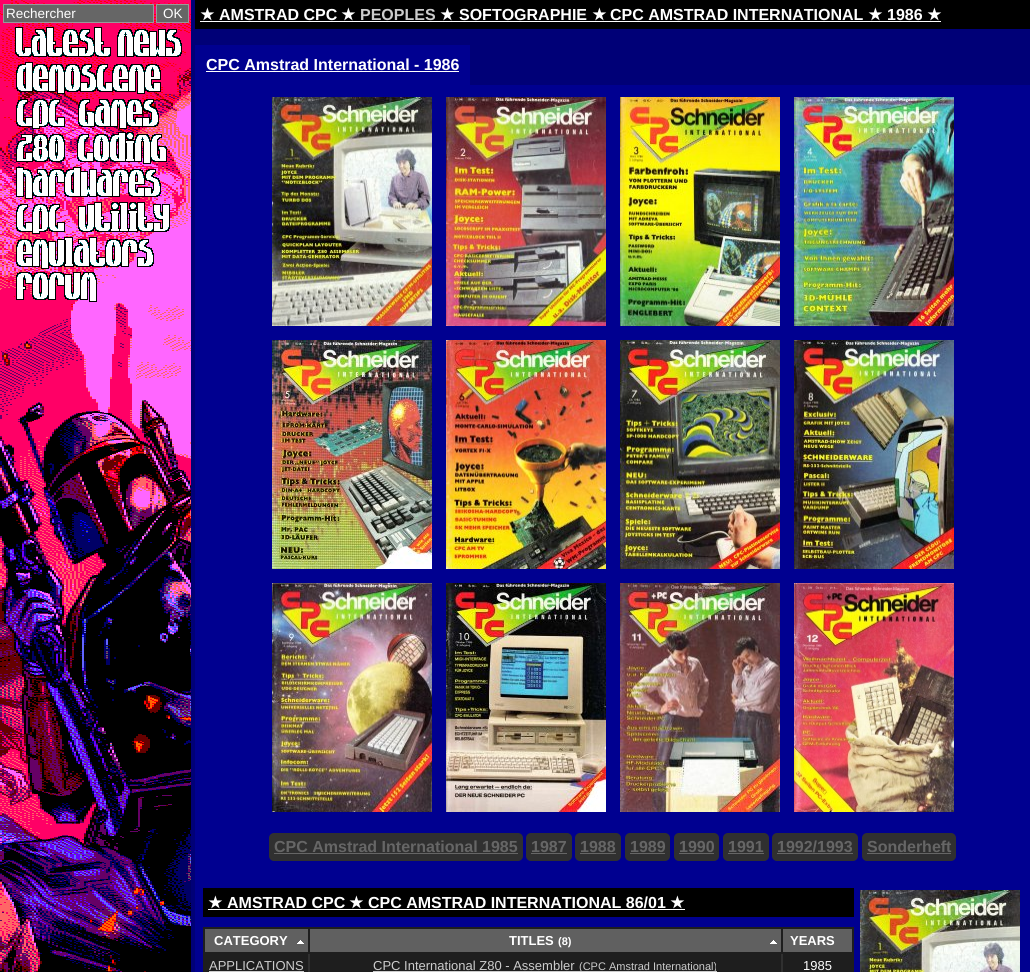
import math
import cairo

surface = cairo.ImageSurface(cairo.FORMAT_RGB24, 1030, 972)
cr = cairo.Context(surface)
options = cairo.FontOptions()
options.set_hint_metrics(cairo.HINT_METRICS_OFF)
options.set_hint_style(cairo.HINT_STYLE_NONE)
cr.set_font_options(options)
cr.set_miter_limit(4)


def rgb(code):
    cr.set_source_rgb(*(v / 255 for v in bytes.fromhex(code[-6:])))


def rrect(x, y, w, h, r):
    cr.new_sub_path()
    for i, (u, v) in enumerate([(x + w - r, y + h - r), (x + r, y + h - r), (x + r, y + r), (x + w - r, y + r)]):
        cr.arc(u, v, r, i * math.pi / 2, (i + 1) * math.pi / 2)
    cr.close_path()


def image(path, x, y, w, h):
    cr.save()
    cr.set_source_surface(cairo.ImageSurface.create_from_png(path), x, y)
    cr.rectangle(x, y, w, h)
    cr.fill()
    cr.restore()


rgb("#000077")
cr.paint()
image("img/1.png", 0, 0, 191, 972)
rgb("#666666")
cr.rectangle(3.5, 4.5, 150, 18)
cr.fill_preserve()
rgb("#999999")
cr.set_line_width(1)
cr.stroke()
rgb("#666666")
cr.rectangle(156.5, 4.5, 32, 18)
cr.fill_preserve()
rgb("#999999")
cr.stroke()
image("img/2.png", 15, 27, 167, 30)
image("img/3.png", 16, 62, 145, 32)
image("img/4.png", 16, 99, 143, 30)
image("img/5.png", 16, 132, 151, 32)
image("img/6.png", 16, 167, 145, 32)
image("img/7.png", 16, 202, 154, 32)
image("img/8.png", 16, 237, 138, 32)
image("img/9.png", 16, 272, 81, 30)
for x, y, w, h, color in [
    (195, 0, 835, 29, "#000000"),
    (200, 21, 741, 1, "#ffffff"),
    (195, 45, 275, 40, "#000090"),
    (206, 71, 253, 1, "#ffffff"),
    (195, 85, 835, 887, "#000090"),
]:
    rgb(color)
    cr.rectangle(x, y, w, h)
    cr.fill()
image("img/10.png", 272, 97, 160, 229)
image("img/11.png", 446, 97, 160, 229)
image("img/12.png", 620, 97, 160, 229)
image("img/13.png", 794, 97, 160, 229)
image("img/14.png", 272, 340, 160, 229)
image("img/15.png", 446, 340, 160, 229)
image("img/16.png", 620, 340, 160, 229)
image("img/17.png", 794, 340, 160, 229)
image("img/18.png", 272, 583, 160, 229)
image("img/19.png", 446, 583, 160, 229)
image("img/20.png", 620, 583, 160, 229)
image("img/21.png", 794, 583, 160, 229)
rgb("#303030")
rrect(269, 833, 254, 28, 5)
cr.fill()
rgb("#666666")
cr.rectangle(274, 853, 244, 1)
cr.fill()
rgb("#303030")
rrect(526, 833, 46, 28, 5)
cr.fill()
rgb("#666666")
cr.rectangle(531, 853, 36, 1)
cr.fill()
rgb("#303030")
rrect(575, 833, 46, 28, 5)
cr.fill()
rgb("#666666")
cr.rectangle(580, 853, 36, 1)
cr.fill()
rgb("#303030")
rrect(625, 833, 45, 28, 5)
cr.fill()
rgb("#666666")
cr.rectangle(630, 853, 35, 1)
cr.fill()
rgb("#303030")
rrect(674, 833, 45, 28, 5)
cr.fill()
rgb("#666666")
cr.rectangle(679, 853, 35, 1)
cr.fill()
rgb("#303030")
rrect(723, 833, 46, 28, 5)
cr.fill()
rgb("#666666")
cr.rectangle(728, 853, 36, 1)
cr.fill()
rgb("#303030")
rrect(772, 833, 86, 28, 5)
cr.fill()
rgb("#666666")
cr.rectangle(777, 853, 76, 1)
cr.fill()
rgb("#303030")
rrect(862, 833, 94, 28, 5)
cr.fill()
for x, y, w, h, color in [
    (867, 853, 84, 1, "#666666"),
    (203, 888, 651, 29, "#000000"),
    (208, 909, 477, 1, "#ffffff"),
    (203, 927, 651, 45, "#1e1e1e"),
    (205, 929, 103, 23, "#606060"),
]:
    rgb(color)
    cr.rectangle(x, y, w, h)
    cr.fill()
image("img/22.png", 297, 940, 7, 4)
cr.rectangle(310, 929, 471, 23)
cr.fill()
image("img/22.png", 770, 940, 7, 4)
for x, y, w, h, color in [
    (783, 929, 69, 23, "#606060"),
    (308, 954, 475, 18, "#303030"),
    (209, 971, 95, 1, "#cccccc"),
    (310, 954, 471, 18, "#1e1e1e"),
    (373, 971, 344, 1, "#cccccc"),
]:
    rgb(color)
    cr.rectangle(x, y, w, h)
    cr.fill()
image("img/23.png", 860, 890, 160, 82)
cr.select_font_face("Liberation Sans")
cr.set_font_size(13.5)
rgb("#ffffff")
cr.move_to(6, 18)
cr.show_text("Rechercher")
cr.move_to(163, 18)
cr.show_text("OK")
cr.select_font_face("DejaVu Sans", cairo.FONT_SLANT_NORMAL, cairo.FONT_WEIGHT_BOLD)
cr.set_font_size(16)
cr.move_to(200, 20)
cr.show_text("★")
cr.select_font_face("Liberation Sans", cairo.FONT_SLANT_NORMAL, cairo.FONT_WEIGHT_BOLD)
cr.move_to(219, 20)
cr.show_text("AMSTRAD CPC")
cr.select_font_face("DejaVu Sans", cairo.FONT_SLANT_NORMAL, cairo.FONT_WEIGHT_BOLD)
cr.move_to(341, 20)
cr.show_text("★")
cr.select_font_face("Liberation Sans", cairo.FONT_SLANT_NORMAL, cairo.FONT_WEIGHT_BOLD)
rgb("#cccccc")
cr.move_to(360, 20)
cr.show_text("PEOPLES")
cr.select_font_face("DejaVu Sans", cairo.FONT_SLANT_NORMAL, cairo.FONT_WEIGHT_BOLD)
rgb("#ffffff")
cr.move_to(440, 20)
cr.show_text("★")
cr.select_font_face("Liberation Sans", cairo.FONT_SLANT_NORMAL, cairo.FONT_WEIGHT_BOLD)
cr.move_to(459, 20)
cr.show_text("SOFTOGRAPHIE")
cr.select_font_face("DejaVu Sans", cairo.FONT_SLANT_NORMAL, cairo.FONT_WEIGHT_BOLD)
cr.move_to(592, 20)
cr.show_text("★")
cr.select_font_face("Liberation Sans", cairo.FONT_SLANT_NORMAL, cairo.FONT_WEIGHT_BOLD)
cr.move_to(610, 20)
cr.show_text("CPC AMSTRAD INTERNATIONAL")
cr.select_font_face("DejaVu Sans", cairo.FONT_SLANT_NORMAL, cairo.FONT_WEIGHT_BOLD)
cr.move_to(868, 20)
cr.show_text("★")
cr.select_font_face("Liberation Sans", cairo.FONT_SLANT_NORMAL, cairo.FONT_WEIGHT_BOLD)
cr.move_to(887, 20)
cr.show_text("1986")
cr.select_font_face("DejaVu Sans", cairo.FONT_SLANT_NORMAL, cairo.FONT_WEIGHT_BOLD)
cr.move_to(927, 20)
cr.show_text("★")
cr.select_font_face("Liberation Sans", cairo.FONT_SLANT_NORMAL, cairo.FONT_WEIGHT_BOLD)
cr.move_to(206, 70)
cr.show_text("CPC Amstrad International - 1986")
rgb("#666666")
for x, y, s in [
    (274, 852, "CPC Amstrad International 1985"),
    (531, 852, "1987"),
    (580, 852, "1988"),
    (630, 852, "1989"),
    (679, 852, "1990"),
    (728, 852, "1991"),
    (777, 852, "1992/1993"),
    (867, 852, "Sonderheft"),
]:
    cr.move_to(x, y)
    cr.show_text(s)
cr.select_font_face("DejaVu Sans", cairo.FONT_SLANT_NORMAL, cairo.FONT_WEIGHT_BOLD)
rgb("#ffffff")
cr.move_to(208, 908)
cr.show_text("★")
cr.select_font_face("Liberation Sans", cairo.FONT_SLANT_NORMAL, cairo.FONT_WEIGHT_BOLD)
cr.move_to(227, 908)
cr.show_text("AMSTRAD CPC")
cr.select_font_face("DejaVu Sans", cairo.FONT_SLANT_NORMAL, cairo.FONT_WEIGHT_BOLD)
cr.move_to(349, 908)
cr.show_text("★")
cr.select_font_face("Liberation Sans", cairo.FONT_SLANT_NORMAL, cairo.FONT_WEIGHT_BOLD)
cr.move_to(368, 908)
cr.show_text("CPC AMSTRAD INTERNATIONAL 86/01")
cr.select_font_face("DejaVu Sans", cairo.FONT_SLANT_NORMAL, cairo.FONT_WEIGHT_BOLD)
cr.move_to(670, 908)
cr.show_text("★")
cr.select_font_face("Liberation Sans", cairo.FONT_SLANT_NORMAL, cairo.FONT_WEIGHT_BOLD)
cr.set_font_size(13)
cr.move_to(214, 945)
cr.show_text("CATEGORY")
cr.move_to(509, 945)
cr.show_text("TITLES")
cr.set_font_size(11)
cr.move_to(558, 945)
cr.show_text("(8)")
cr.set_font_size(13)
cr.move_to(790, 945)
cr.show_text("YEARS")
cr.select_font_face("Liberation Sans")
rgb("#cccccc")
cr.move_to(209, 970)
cr.show_text("APPLICATIONS")
cr.move_to(373, 970)
cr.show_text("CPC International Z80 - Assembler")
cr.set_font_size(11)
cr.move_to(579, 970)
cr.show_text("(CPC Amstrad International)")
cr.set_font_size(13)
rgb("#ffffff")
cr.move_to(803, 970)
cr.show_text("1985")
surface.write_to_png("page.png")
